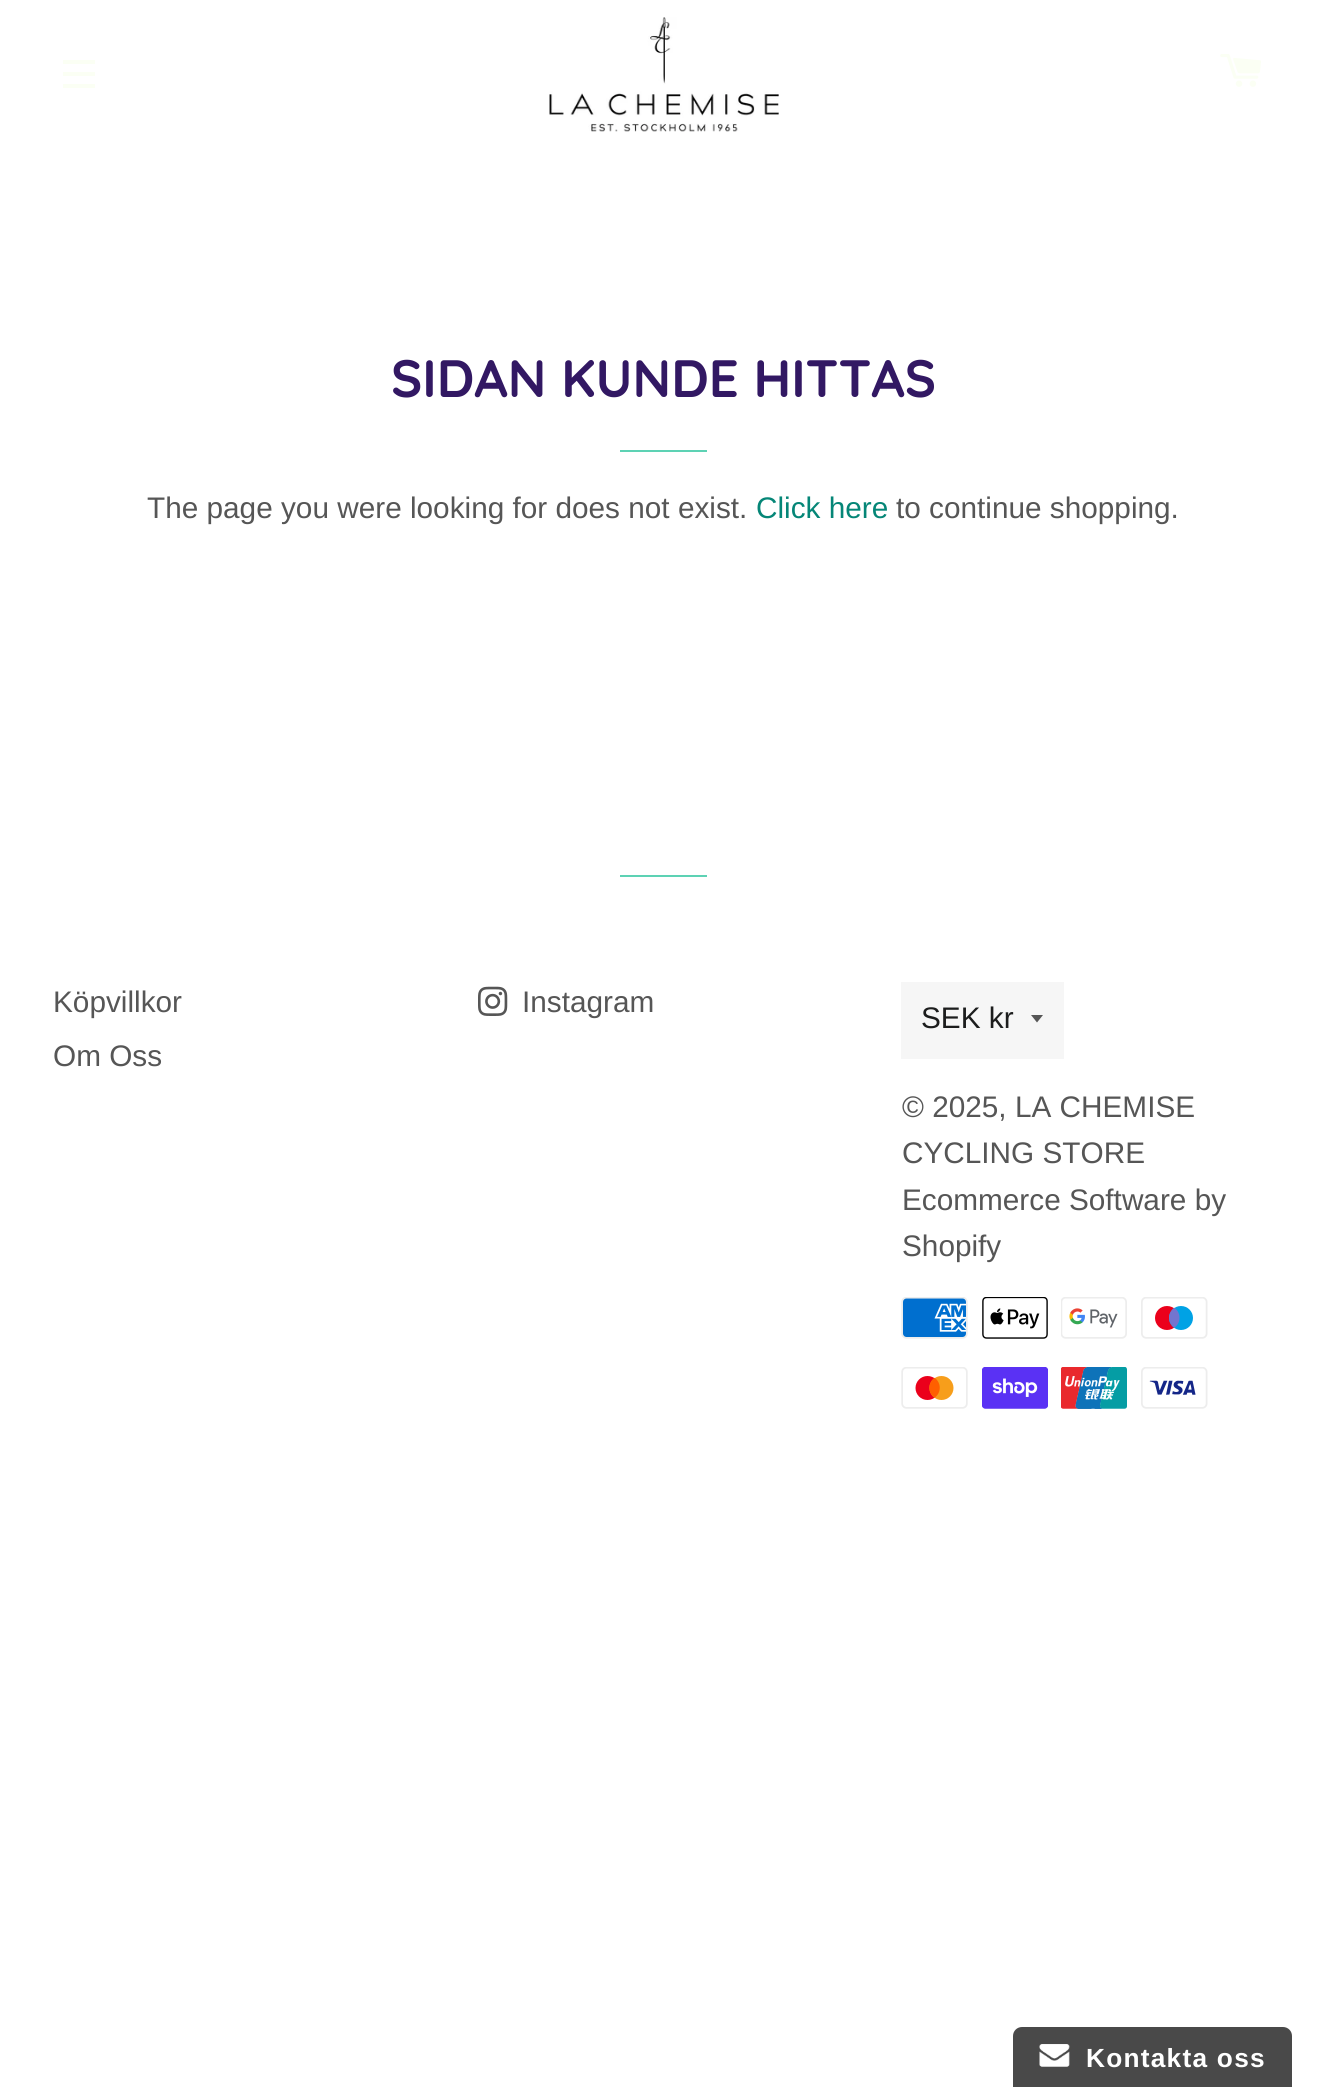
import math
import cairo

surface = cairo.ImageSurface(cairo.FORMAT_RGB24, 1325, 2087)
cr = cairo.Context(surface)
options = cairo.FontOptions()
options.set_hint_metrics(cairo.HINT_METRICS_OFF)
options.set_hint_style(cairo.HINT_STYLE_NONE)
cr.set_font_options(options)
cr.set_miter_limit(4)


def rgb(code):
    cr.set_source_rgb(*(v / 255 for v in bytes.fromhex(code[-6:])))


def tracked(x, y, s, letter, word):
    cr.move_to(x, y)
    for ch in s:
        cr.show_text(ch)
        cr.rel_move_to(letter + word * (ch == ' '), 0)


def image(path, x, y, w, h):
    cr.save()
    cr.set_source_surface(cairo.ImageSurface.create_from_png(path), x, y)
    cr.rectangle(x, y, w, h)
    cr.fill()
    cr.restore()


rgb("#ffffff")
cr.paint()
for x, y, w, h, color in [
    (63, 60, 32, 4, "#fbfff4"),
    (63, 72, 32, 4, "#fbfff4"),
    (63, 84, 32, 4, "#fbfff4"),
]:
    rgb(color)
    cr.rectangle(x, y, w, h)
    cr.fill()
image("img/1.png", 549, 17, 230, 115)
image("img/2.png", 1220, 54, 41, 33)
rgb("#5dd2b4")
cr.rectangle(620, 450, 87, 2)
cr.fill()
cr.rectangle(620, 875, 87, 2)
cr.fill()
image("img/3.png", 478, 986, 30, 30)
rgb("#f6f6f6")
cr.rectangle(901, 982, 163, 77)
cr.fill()
rgb("#565656")
cr.new_path()
cr.move_to(1031, 1015)
cr.line_to(1037, 1022.5)
cr.line_to(1043, 1015)
cr.close_path()
cr.fill()
image("img/4.png", 901, 1297, 67, 42)
image("img/5.png", 982, 1297, 66, 42)
image("img/6.png", 1061, 1297, 66, 42)
image("img/7.png", 1141, 1297, 67, 42)
image("img/8.png", 901, 1367, 67, 42)
image("img/9.png", 982, 1367, 66, 42)
image("img/10.png", 1061, 1367, 66, 42)
image("img/11.png", 1141, 1367, 67, 42)
rgb("#494949")
cr.new_path()
cr.move_to(1022, 2027)
cr.line_to(1283, 2027)
cr.curve_to(1288, 2027, 1292, 2031, 1292, 2036)
cr.line_to(1292, 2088)
cr.line_to(1013, 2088)
cr.line_to(1013, 2036)
cr.curve_to(1013, 2031, 1017, 2027, 1022, 2027)
cr.close_path()
cr.fill()
image("img/12.png", 1039, 2044, 31, 23)
cr.select_font_face("Quicksand", cairo.FONT_SLANT_NORMAL, cairo.FONT_WEIGHT_BOLD)
cr.set_font_size(52.5)
rgb("#321863")
cr.move_to(391, 397)
cr.show_text("SIDAN KUNDE HITTAS")
cr.select_font_face("Liberation Sans")
cr.set_font_size(29.75)
rgb("#565656")
cr.move_to(147, 518)
cr.show_text("The page you were looking for does not exist.")
rgb("#058677")
cr.move_to(756, 518)
cr.show_text("Click here")
rgb("#565656")
for x, y, s in [
    (896, 518, "to continue shopping."),
    (53, 1012, "Köpvillkor"),
    (53, 1066, "Om Oss"),
    (522, 1012, "Instagram"),
]:
    cr.move_to(x, y)
    cr.show_text(s)
rgb("#1c1d1d")
cr.move_to(921, 1028)
cr.show_text("SEK kr")
rgb("#565656")
for x, y, s in [
    (902, 1117, "© 2025, LA CHEMISE"),
    (902, 1163, "CYCLING STORE"),
    (902, 1210, "Ecommerce Software by"),
    (902, 1256, "Shopify"),
]:
    cr.move_to(x, y)
    cr.show_text(s)
cr.select_font_face("Liberation Sans", cairo.FONT_SLANT_NORMAL, cairo.FONT_WEIGHT_BOLD)
cr.set_font_size(26.25)
rgb("#ffffff")
tracked(1086, 2067, "Kontakta oss", 1.25, 0)
surface.write_to_png("page.png")
